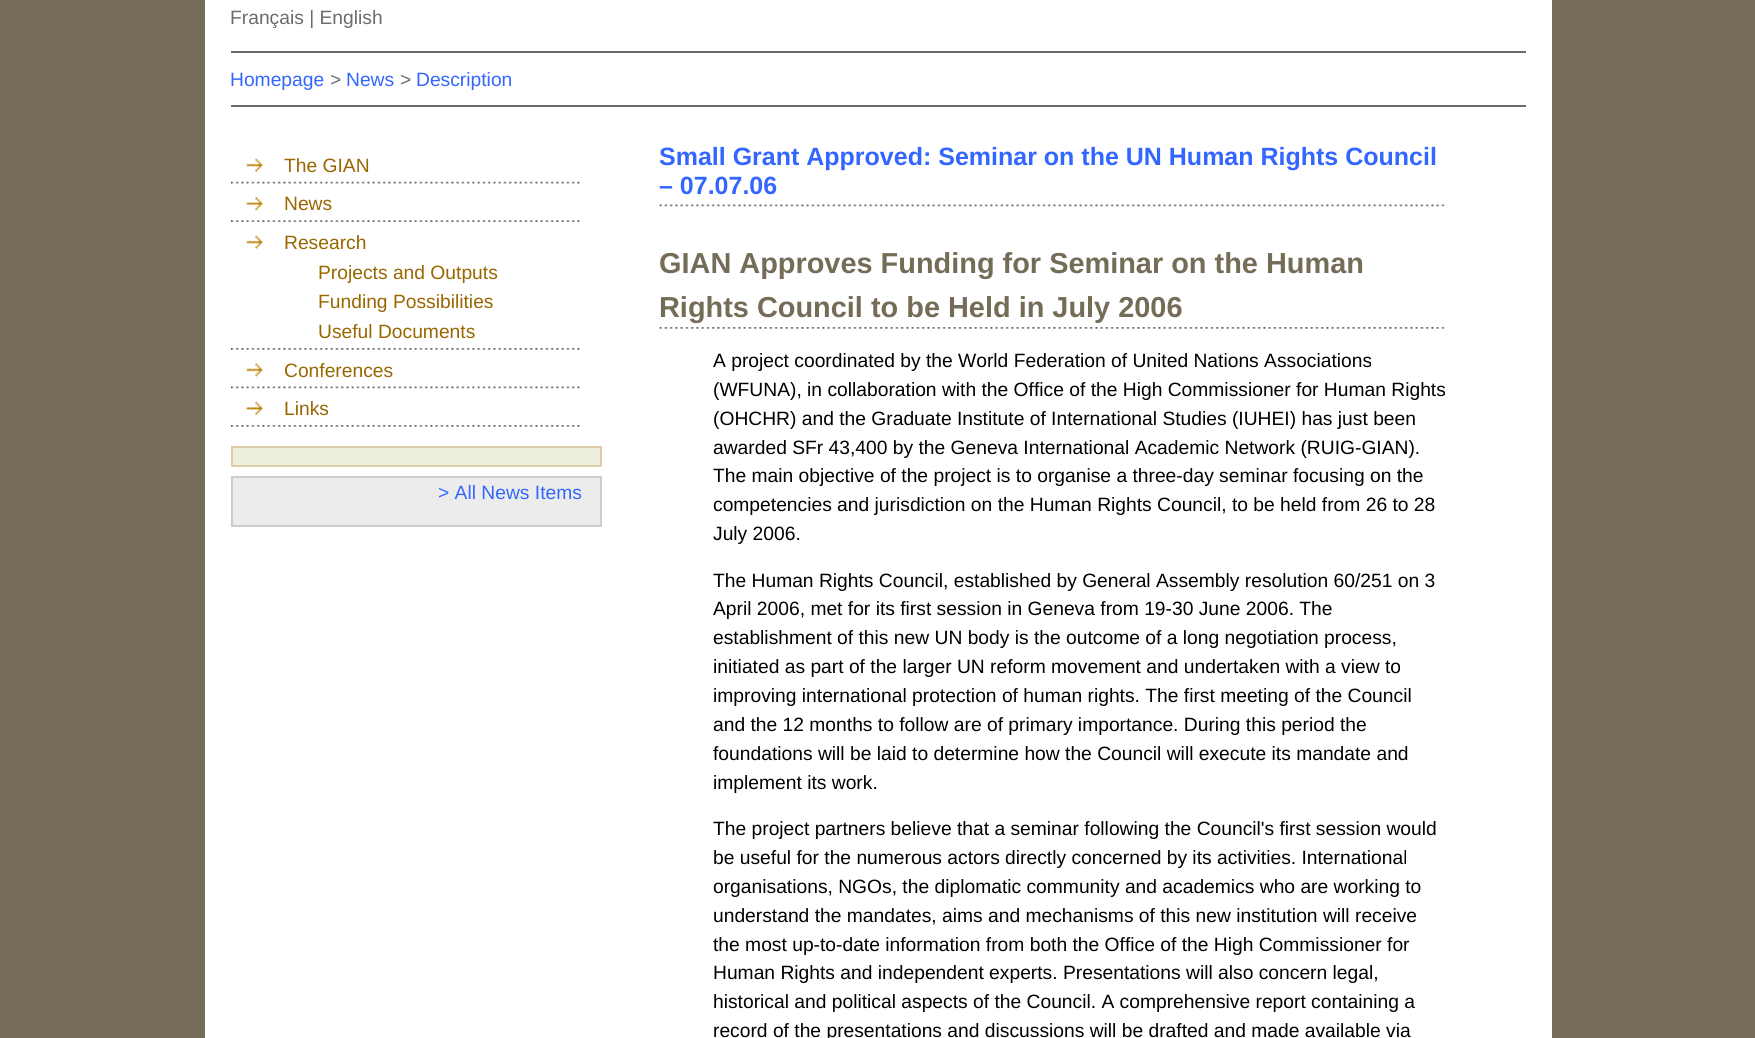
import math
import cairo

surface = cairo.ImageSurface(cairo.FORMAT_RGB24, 1755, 1038)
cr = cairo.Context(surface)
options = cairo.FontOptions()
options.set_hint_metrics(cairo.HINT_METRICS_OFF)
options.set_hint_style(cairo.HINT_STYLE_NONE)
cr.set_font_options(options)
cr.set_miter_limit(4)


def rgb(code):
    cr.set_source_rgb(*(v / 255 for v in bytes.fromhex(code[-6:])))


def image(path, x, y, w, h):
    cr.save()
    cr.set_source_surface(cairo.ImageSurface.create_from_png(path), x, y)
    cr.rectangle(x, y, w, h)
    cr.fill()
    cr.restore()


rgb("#756c58")
cr.paint()
for x, y, w, h, color in [
    (205, 0, 1347, 1038, "#ffffff"),
    (231, 51, 1295, 2, "#6c6c6c"),
    (231, 105, 1295, 2, "#6c6c6c"),
]:
    rgb(color)
    cr.rectangle(x, y, w, h)
    cr.fill()
image("img/1.png", 231, 181, 349, 3)
image("img/2.png", 246, 158, 17, 14)
image("img/3.png", 231, 220, 349, 2)
image("img/4.png", 246, 197, 17, 14)
image("img/5.png", 231, 348, 349, 2)
image("img/2.png", 246, 235, 17, 14)
image("img/6.png", 231, 386, 349, 3)
image("img/7.png", 246, 363, 17, 14)
image("img/5.png", 231, 425, 349, 2)
image("img/8.png", 246, 401, 17, 14)
rgb("#eeeedd")
cr.rectangle(232, 447, 369, 19)
cr.fill_preserve()
rgb("#ddccaa")
cr.stroke()
rgb("#ececec")
cr.rectangle(232, 477, 369, 49)
cr.fill_preserve()
rgb("#cccccc")
cr.stroke()
image("img/9.png", 659, 204, 786, 3)
image("img/10.png", 659, 327, 786, 2)
cr.select_font_face("Liberation Sans")
cr.set_font_size(19.25)
rgb("#6c6c6c")
cr.move_to(230, 24)
cr.show_text("Français | English")
rgb("#3366ff")
cr.move_to(230, 86)
cr.show_text("Homepage")
rgb("#6c6c6c")
cr.move_to(330, 86)
cr.show_text(">")
rgb("#3366ff")
cr.move_to(346, 86)
cr.show_text("News")
rgb("#6c6c6c")
cr.move_to(400, 86)
cr.show_text(">")
rgb("#3366ff")
cr.move_to(416, 86)
cr.show_text("Description")
rgb("#996600")
for x, y, s in [
    (284, 172, "The GIAN"),
    (284, 210, "News"),
    (284, 249, "Research"),
    (318, 279, "Projects and Outputs"),
    (318, 308, "Funding Possibilities"),
    (318, 338, "Useful Documents"),
    (284, 377, "Conferences"),
    (284, 415, "Links"),
]:
    cr.move_to(x, y)
    cr.show_text(s)
rgb("#3366ff")
cr.move_to(438, 499)
cr.show_text("> All News Items")
cr.select_font_face("Liberation Sans", cairo.FONT_SLANT_NORMAL, cairo.FONT_WEIGHT_BOLD)
cr.set_font_size(25)
cr.move_to(659, 165)
cr.show_text("Small Grant Approved: Seminar on the UN Human Rights Council")
cr.move_to(659, 194)
cr.show_text("– 07.07.06")
cr.set_font_size(28.9)
rgb("#756c58")
cr.move_to(659, 273)
cr.show_text("GIAN Approves Funding for Seminar on the Human")
cr.move_to(659, 317)
cr.show_text("Rights Council to be Held in July 2006")
cr.select_font_face("Liberation Sans")
cr.set_font_size(19.25)
rgb("#000000")
for x, y, s in [
    (713, 367, "A project coordinated by the World Federation of United Nations Associations"),
    (713, 396, "(WFUNA), in collaboration with the Office of the High Commissioner for Human Rights"),
    (713, 425, "(OHCHR) and the Graduate Institute of International Studies (IUHEI) has just been"),
    (713, 454, "awarded SFr 43,400 by the Geneva International Academic Network (RUIG-GIAN)."),
    (713, 482, "The main objective of the project is to organise a three-day seminar focusing on the"),
    (713, 511, "competencies and jurisdiction on the Human Rights Council, to be held from 26 to 28"),
    (713, 540, "July 2006."),
    (713, 587, "The Human Rights Council, established by General Assembly resolution 60/251 on 3"),
    (713, 615, "April 2006, met for its first session in Geneva from 19-30 June 2006. The"),
    (713, 644, "establishment of this new UN body is the outcome of a long negotiation process,"),
    (713, 673, "initiated as part of the larger UN reform movement and undertaken with a view to"),
    (713, 702, "improving international protection of human rights. The first meeting of the Council"),
    (713, 731, "and the 12 months to follow are of primary importance. During this period the"),
    (713, 760, "foundations will be laid to determine how the Council will execute its mandate and"),
    (713, 789, "implement its work."),
    (713, 835, "The project partners believe that a seminar following the Council's first session would"),
    (713, 864, "be useful for the numerous actors directly concerned by its activities. International"),
    (713, 893, "organisations, NGOs, the diplomatic community and academics who are working to"),
    (713, 922, "understand the mandates, aims and mechanisms of this new institution will receive"),
    (713, 951, "the most up-to-date information from both the Office of the High Commissioner for"),
    (713, 979, "Human Rights and independent experts. Presentations will also concern legal,"),
    (713, 1008, "historical and political aspects of the Council. A comprehensive report containing a"),
    (713, 1037, "record of the presentations and discussions will be drafted and made available via"),
]:
    cr.move_to(x, y)
    cr.show_text(s)
surface.write_to_png("page.png")
